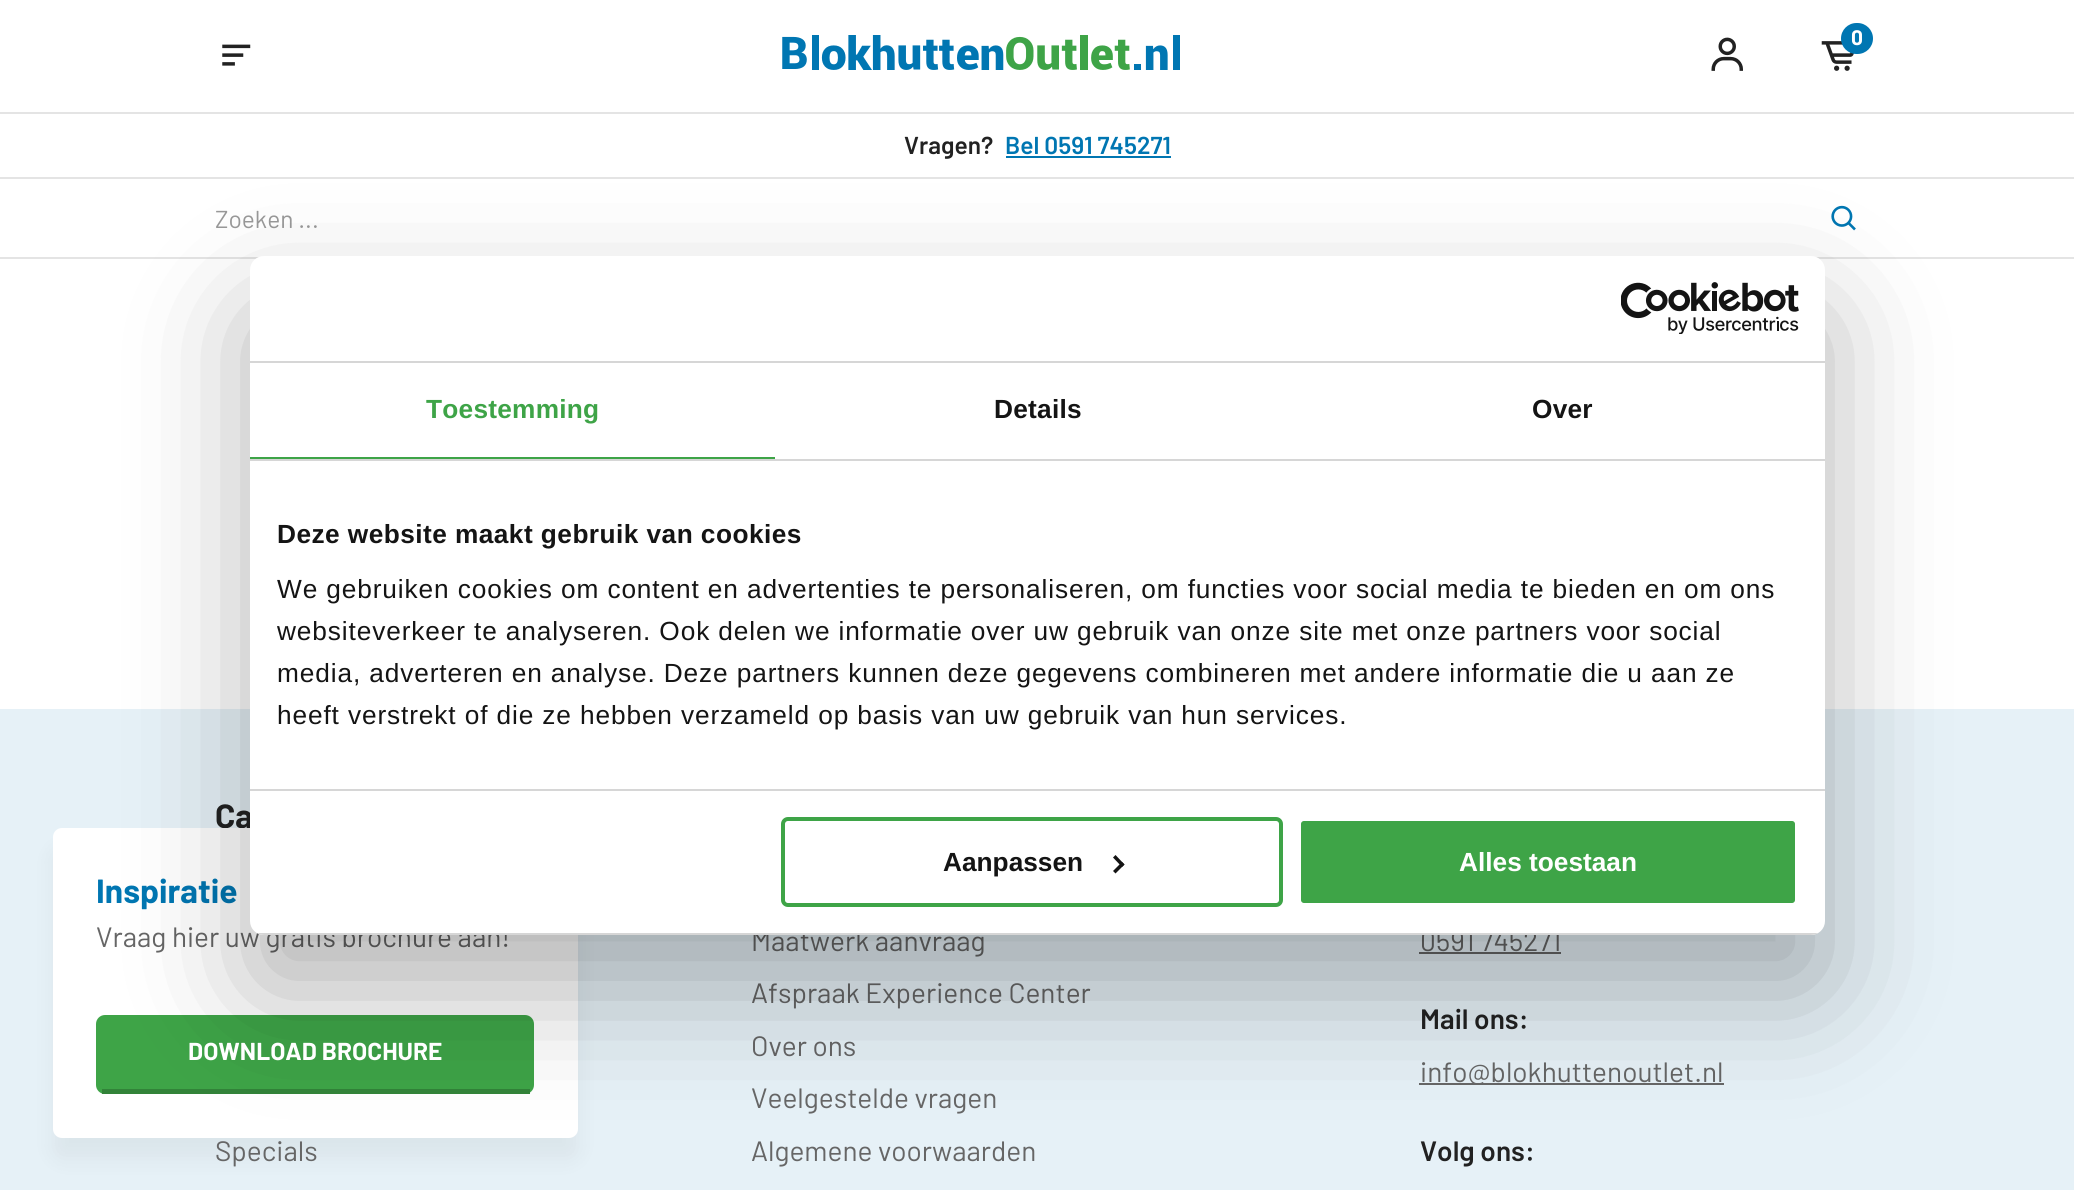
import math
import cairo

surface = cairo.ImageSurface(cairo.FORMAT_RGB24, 2074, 1190)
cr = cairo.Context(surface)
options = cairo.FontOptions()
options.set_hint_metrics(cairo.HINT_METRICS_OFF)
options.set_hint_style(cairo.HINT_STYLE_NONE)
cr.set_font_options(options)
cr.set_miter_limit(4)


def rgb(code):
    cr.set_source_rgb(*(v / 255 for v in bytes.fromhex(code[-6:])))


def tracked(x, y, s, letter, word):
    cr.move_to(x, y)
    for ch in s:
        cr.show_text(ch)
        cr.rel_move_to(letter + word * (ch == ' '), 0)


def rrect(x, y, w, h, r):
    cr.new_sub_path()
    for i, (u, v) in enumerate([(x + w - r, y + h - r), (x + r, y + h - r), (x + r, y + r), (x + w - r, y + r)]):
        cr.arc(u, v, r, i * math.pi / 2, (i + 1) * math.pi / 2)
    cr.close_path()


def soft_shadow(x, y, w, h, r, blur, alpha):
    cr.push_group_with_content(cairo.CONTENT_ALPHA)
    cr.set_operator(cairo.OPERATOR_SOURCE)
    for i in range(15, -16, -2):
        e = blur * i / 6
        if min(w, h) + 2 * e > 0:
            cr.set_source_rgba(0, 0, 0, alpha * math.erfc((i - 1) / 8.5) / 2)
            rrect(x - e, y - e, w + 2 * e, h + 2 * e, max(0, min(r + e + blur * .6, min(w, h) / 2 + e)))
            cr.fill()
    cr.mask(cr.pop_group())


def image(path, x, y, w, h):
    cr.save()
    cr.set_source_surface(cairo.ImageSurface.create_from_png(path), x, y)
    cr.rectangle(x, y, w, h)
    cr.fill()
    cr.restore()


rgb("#ffffff")
cr.paint()
image("img/1.png", 222, 44, 29, 22)
image("img/2.png", 782, 35, 398, 35)
image("img/3.png", 1711, 37, 32, 34)
image("img/4.png", 1821, 41, 33, 30)
rgb("#0076b2")
rrect(1841, 23, 32, 31, 15.5)
cr.fill()
for x, y, w, h, color in [
    (0, 112, 2074, 2, "#e4e4e4"),
    (0, 177, 2074, 2, "#e4e4e4"),
    (1006, 156, 165, 2, "#0076b2"),
    (0, 257, 2074, 2, "#e4e4e4"),
]:
    rgb(color)
    cr.rectangle(x, y, w, h)
    cr.fill()
image("img/5.png", 1831, 205, 25, 26)
for x, y, w, h, color in [
    (0, 709, 2074, 481, "#e6f1f7"),
    (1419, 952, 142, 2, "#666666"),
    (1419, 1083, 305, 2, "#666666"),
]:
    rgb(color)
    cr.rectangle(x, y, w, h)
    cr.fill()
rgb("#000000")
soft_shadow(53, 849, 525, 310, 9, 10.5, 0.05)
cr.select_font_face("Barlow", cairo.FONT_SLANT_NORMAL, cairo.FONT_WEIGHT_BOLD)
cr.set_font_size(21)
rgb("#ffffff")
cr.move_to(1851, 45)
cr.show_text("0")
cr.select_font_face("Barlow SemiBold")
cr.set_font_size(24.5)
rgb("#222222")
cr.move_to(904, 154)
cr.show_text("Vragen?")
rgb("#0076b2")
cr.move_to(1005, 154)
cr.show_text("Bel 0591 745271")
cr.select_font_face("Barlow")
rgb("#999999")
cr.move_to(215, 228)
cr.show_text("Zoeken ...")
cr.select_font_face("Barlow", cairo.FONT_SLANT_NORMAL, cairo.FONT_WEIGHT_BOLD)
cr.set_font_size(33.5)
rgb("#222222")
cr.move_to(215, 828)
cr.show_text("Ca")
cr.select_font_face("Barlow")
cr.set_font_size(28)
rgb("#666666")
for x, y, s in [
    (215, 1161, "Specials"),
    (751, 951, "Maatwerk aanvraag"),
    (751, 1003, "Afspraak Experience Center"),
    (751, 1056, "Over ons"),
    (751, 1108, "Veelgestelde vragen"),
    (751, 1161, "Algemene voorwaarden"),
    (1420, 951, "0591 745271"),
]:
    cr.move_to(x, y)
    cr.show_text(s)
cr.select_font_face("Barlow SemiBold")
rgb("#222222")
cr.move_to(1420, 1029)
cr.show_text("Mail ons:")
cr.select_font_face("Barlow")
rgb("#666666")
cr.move_to(1420, 1082)
cr.show_text("info@blokhuttenoutlet.nl")
cr.select_font_face("Barlow SemiBold")
rgb("#222222")
cr.move_to(1420, 1161)
cr.show_text("Volg ons:")
rgb("#ffffff")
rrect(53, 828, 525, 310, 9)
cr.fill()
cr.select_font_face("Barlow", cairo.FONT_SLANT_NORMAL, cairo.FONT_WEIGHT_BOLD)
cr.set_font_size(33.5)
rgb("#0076b2")
cr.move_to(96, 903)
cr.show_text("Inspiratie")
cr.select_font_face("Barlow")
cr.set_font_size(28)
rgb("#666666")
cr.move_to(96, 947)
cr.show_text("Vraag hier uw gratis brochure aan!")
rgb("#3ea447")
rrect(96, 1015, 438, 79, 9)
cr.fill()
rgb("#328339")
cr.rectangle(102, 1089, 428, 5)
cr.fill()
rgb("#000000")
soft_shadow(250, 312, 1575, 679, 14, 59.5, 0.3)
rgb("#ffffff")
rrect(250, 256, 1575, 679, 14)
cr.fill()
rrect(783, 819, 498, 86, 5)
rgb("#3ea447")
cr.set_line_width(4)
cr.stroke()
rgb("#141414")
cr.new_path()
cr.move_to(1115.5, 855)
cr.line_to(1124.5, 864.5)
cr.line_to(1122, 867)
cr.line_to(1113, 857.5)
cr.close_path()
cr.fill()
cr.new_path()
cr.move_to(1122, 862)
cr.line_to(1124.5, 864.5)
cr.line_to(1115.5, 873.5)
cr.line_to(1113, 871)
cr.close_path()
cr.fill()
rgb("#3ea447")
rrect(1299, 819, 498, 86, 5)
cr.fill_preserve()
rgb("#ffffff")
cr.stroke()
cr.select_font_face("Liberation Sans", cairo.FONT_SLANT_NORMAL, cairo.FONT_WEIGHT_BOLD)
cr.set_font_size(26.25)
cr.move_to(1459, 871)
cr.show_text("Alles toestaan")
rgb("#141414")
cr.move_to(943, 871)
cr.show_text("Aanpassen")
cr.save()
rrect(250, 256, 1575, 679, 14)
cr.clip()
rgb("#d6d6d6")
cr.rectangle(250, 933, 1575, 2)
cr.fill()
cr.restore()
cr.select_font_face("Liberation Sans")
for x, y, s in [
    (277, 724, "heeft verstrekt of die ze hebben verzameld op basis van uw gebruik van hun services."),
    (277, 682, "media, adverteren en analyse. Deze partners kunnen deze gegevens combineren met andere informatie die u aan ze"),
    (277, 640, "websiteverkeer te analyseren. Ook delen we informatie over uw gebruik van onze site met onze partners voor social"),
    (277, 598, "We gebruiken cookies om content en advertenties te personaliseren, om functies voor social media te bieden en om ons"),
]:
    tracked(x, y, s, 0.88, 0)
cr.select_font_face("Liberation Sans", cairo.FONT_SLANT_NORMAL, cairo.FONT_WEIGHT_BOLD)
tracked(277, 543, "Deze website maakt gebruik van cookies", 0.45, 0)
rgb("#d6d6d6")
cr.rectangle(250, 789, 1575, 2)
cr.fill()
rgb("#141414")
tracked(1532, 418, "Over", 0.25, 0)
tracked(994, 418, "Details", 0.25, 0)
rgb("#3ea447")
tracked(426, 418, "Toestemming", 0.25, 0)
cr.rectangle(250, 457, 525, 2)
cr.fill()
rgb("#d6d6d6")
cr.rectangle(250, 459, 1575, 2)
cr.fill()
image("img/6.png", 1621, 282, 178, 52)
cr.rectangle(250, 361, 1575, 2)
cr.fill()
cr.select_font_face("Barlow", cairo.FONT_SLANT_NORMAL, cairo.FONT_WEIGHT_BOLD)
cr.set_font_size(24.5)
rgb("#ffffff")
cr.move_to(188, 1060)
cr.show_text("DOWNLOAD BROCHURE")
surface.write_to_png("page.png")
